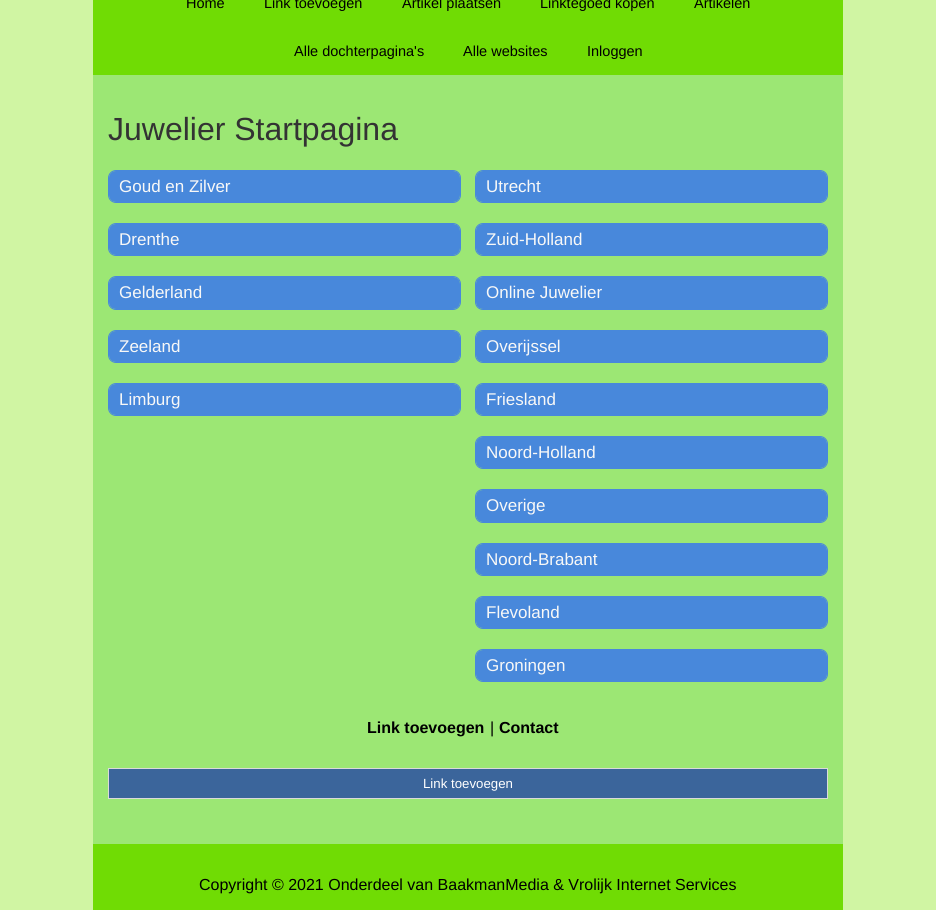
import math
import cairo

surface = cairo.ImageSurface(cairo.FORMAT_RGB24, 936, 910)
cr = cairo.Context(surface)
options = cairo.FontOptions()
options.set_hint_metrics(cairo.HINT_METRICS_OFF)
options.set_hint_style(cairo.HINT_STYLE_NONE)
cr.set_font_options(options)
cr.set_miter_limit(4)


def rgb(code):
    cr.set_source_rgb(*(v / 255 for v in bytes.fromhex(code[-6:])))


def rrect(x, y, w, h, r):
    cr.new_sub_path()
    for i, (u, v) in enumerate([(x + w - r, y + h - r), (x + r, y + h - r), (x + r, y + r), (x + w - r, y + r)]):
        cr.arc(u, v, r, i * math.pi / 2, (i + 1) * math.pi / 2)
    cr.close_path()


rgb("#d0f5a3")
cr.paint()
rgb("#70dc04")
cr.rectangle(93, 0, 750, 75)
cr.fill()
rgb("#9ce774")
cr.rectangle(93, 75, 750, 769)
cr.fill()
rrect(108.5, 170.5, 352, 32, 7.5)
rgb("#4888db")
cr.set_line_width(1)
cr.stroke()
rrect(109, 171, 351, 31, 7)
cr.fill()
rrect(108.5, 223.5, 352, 32, 7.5)
cr.stroke()
rrect(109, 224, 351, 31, 7)
cr.fill()
rrect(108.5, 276.5, 352, 33, 7.5)
cr.stroke()
rrect(109, 277, 351, 32, 7)
cr.fill()
rrect(108.5, 330.5, 352, 32, 7.5)
cr.stroke()
rrect(109, 331, 351, 31, 7)
cr.fill()
rrect(108.5, 383.5, 352, 32, 7.5)
cr.stroke()
rrect(109, 384, 351, 31, 7)
cr.fill()
rrect(475.5, 170.5, 352, 32, 7.5)
cr.stroke()
rrect(476, 171, 351, 31, 7)
cr.fill()
rrect(475.5, 223.5, 352, 32, 7.5)
cr.stroke()
rrect(476, 224, 351, 31, 7)
cr.fill()
rrect(475.5, 276.5, 352, 33, 7.5)
cr.stroke()
rrect(476, 277, 351, 32, 7)
cr.fill()
rrect(475.5, 330.5, 352, 32, 7.5)
cr.stroke()
rrect(476, 331, 351, 31, 7)
cr.fill()
rrect(475.5, 383.5, 352, 32, 7.5)
cr.stroke()
rrect(476, 384, 351, 31, 7)
cr.fill()
rrect(475.5, 436.5, 352, 32, 7.5)
cr.stroke()
rrect(476, 437, 351, 31, 7)
cr.fill()
rrect(475.5, 489.5, 352, 33, 7.5)
cr.stroke()
rrect(476, 490, 351, 32, 7)
cr.fill()
rrect(475.5, 543.5, 352, 32, 7.5)
cr.stroke()
rrect(476, 544, 351, 31, 7)
cr.fill()
rrect(475.5, 596.5, 352, 32, 7.5)
cr.stroke()
rrect(476, 597, 351, 31, 7)
cr.fill()
rrect(475.5, 649.5, 352, 32, 7.5)
cr.stroke()
rrect(476, 650, 351, 31, 7)
cr.fill()
rgb("#3b659b")
cr.rectangle(108.5, 768.5, 719, 30)
cr.fill_preserve()
rgb("#dadada")
cr.stroke()
rgb("#70dc04")
cr.rectangle(93, 844, 750, 66)
cr.fill()
cr.select_font_face("Liberation Sans")
cr.set_font_size(14.5)
rgb("#000000")
for x, y, s in [
    (186, 8, "Home"),
    (264, 8, "Link toevoegen"),
    (402, 8, "Artikel plaatsen"),
    (540, 8, "Linktegoed kopen"),
    (694, 8, "Artikelen"),
    (294, 56, "Alle dochterpagina's"),
    (463, 56, "Alle websites"),
    (587, 56, "Inloggen"),
]:
    cr.move_to(x, y)
    cr.show_text(s)
cr.set_font_size(32)
rgb("#333333")
cr.move_to(108, 140)
cr.show_text("Juwelier Startpagina")
cr.set_font_size(17)
rgb("#f8f8f7")
for x, y, s in [
    (119, 192, "Goud en Zilver"),
    (119, 245, "Drenthe"),
    (119, 298, "Gelderland"),
    (119, 352, "Zeeland"),
    (119, 405, "Limburg"),
    (486, 192, "Utrecht"),
    (486, 245, "Zuid-Holland"),
    (486, 298, "Online Juwelier"),
    (486, 352, "Overijssel"),
    (486, 405, "Friesland"),
    (486, 458, "Noord-Holland"),
    (486, 511, "Overige"),
    (486, 565, "Noord-Brabant"),
    (486, 618, "Flevoland"),
    (486, 671, "Groningen"),
]:
    cr.move_to(x, y)
    cr.show_text(s)
cr.select_font_face("Liberation Sans", cairo.FONT_SLANT_NORMAL, cairo.FONT_WEIGHT_BOLD)
cr.set_font_size(16)
rgb("#000000")
cr.move_to(367, 733)
cr.show_text("Link toevoegen")
cr.select_font_face("Liberation Sans")
cr.move_to(490, 733)
cr.show_text("|")
cr.select_font_face("Liberation Sans", cairo.FONT_SLANT_NORMAL, cairo.FONT_WEIGHT_BOLD)
cr.move_to(499, 733)
cr.show_text("Contact")
cr.select_font_face("Liberation Sans")
cr.set_font_size(13.25)
rgb("#ffffff")
cr.move_to(423, 788)
cr.show_text("Link toevoegen")
cr.set_font_size(16)
rgb("#000000")
cr.move_to(199, 890)
cr.show_text("Copyright © 2021 Onderdeel van BaakmanMedia & Vrolijk Internet Services")
surface.write_to_png("page.png")
